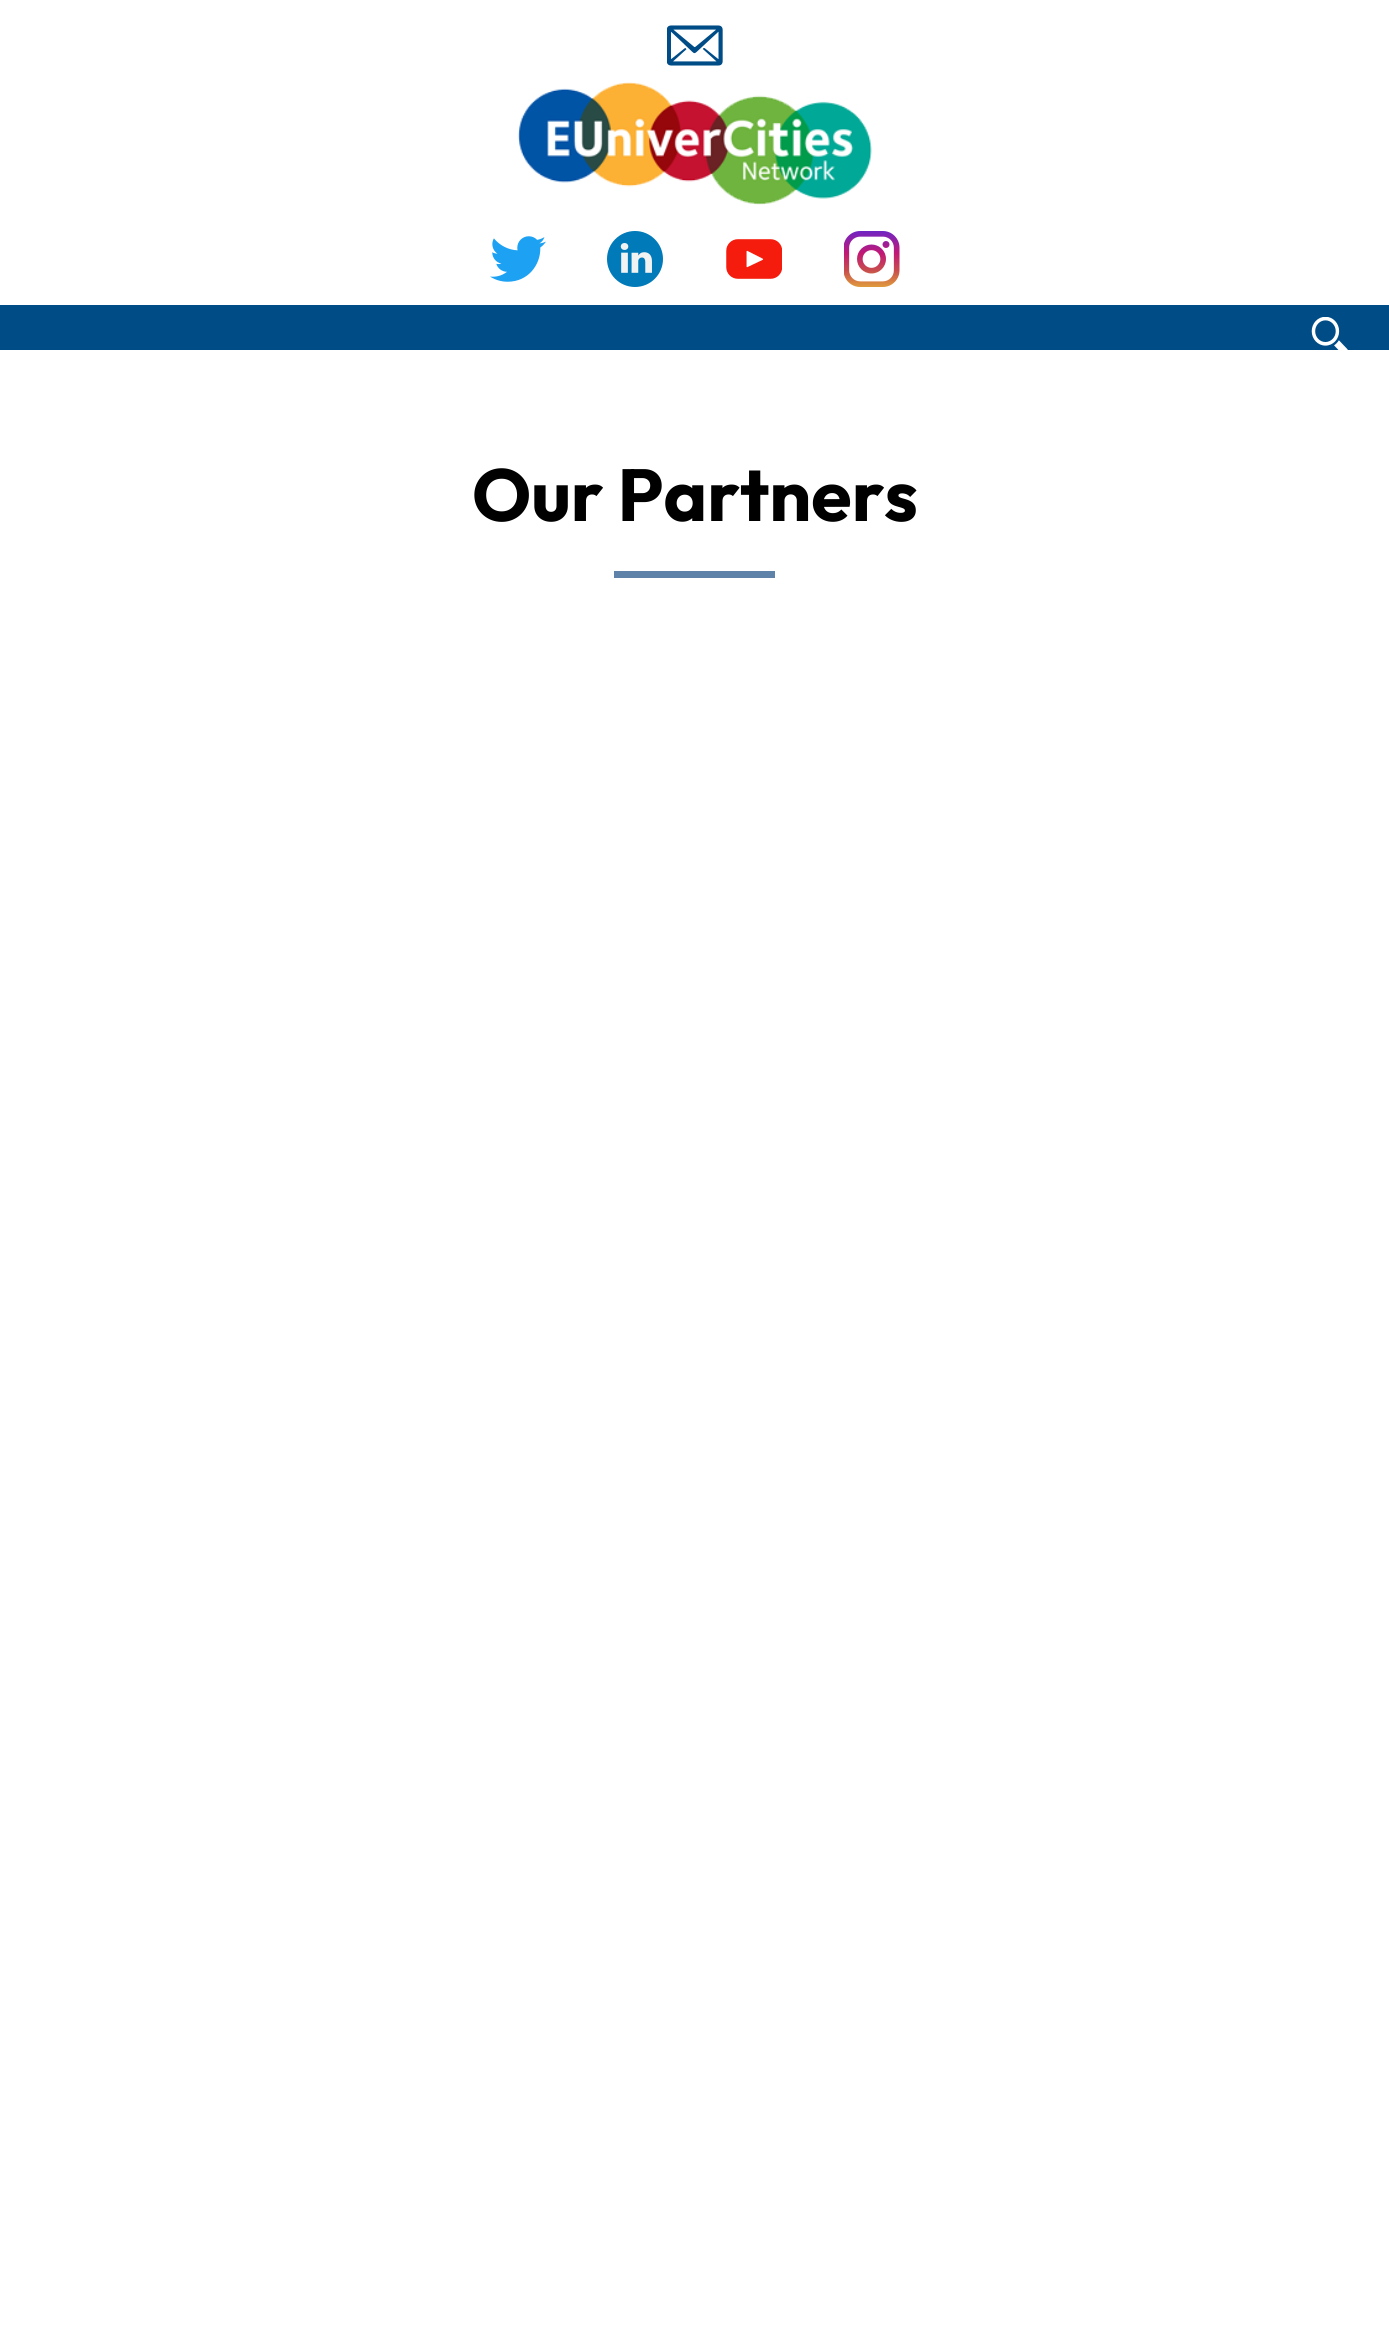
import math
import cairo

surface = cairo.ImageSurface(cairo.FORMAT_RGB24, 1389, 2339)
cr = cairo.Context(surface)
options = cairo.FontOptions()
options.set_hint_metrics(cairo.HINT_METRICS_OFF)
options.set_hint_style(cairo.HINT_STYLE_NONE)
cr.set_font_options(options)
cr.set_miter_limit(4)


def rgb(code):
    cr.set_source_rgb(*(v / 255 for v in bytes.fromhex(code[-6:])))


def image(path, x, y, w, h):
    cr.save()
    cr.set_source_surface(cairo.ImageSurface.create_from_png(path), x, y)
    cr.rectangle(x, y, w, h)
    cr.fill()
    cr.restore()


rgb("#ffffff")
cr.paint()
image("img/1.png", 667, 25, 56, 41)
image("img/2.png", 517, 82, 355, 123)
image("img/3.png", 490, 236, 56, 46)
image("img/4.png", 607, 231, 56, 56)
image("img/5.png", 726, 239, 56, 40)
image("img/6.png", 844, 231, 56, 56)
rgb("#004c87")
cr.rectangle(0, 305, 1389, 45)
cr.fill()
image("img/7.png", 1311, 317, 37, 33)
rgb("#5f82a8")
cr.rectangle(614, 571, 161, 7)
cr.fill()
cr.select_font_face("Outfit", cairo.FONT_SLANT_NORMAL, cairo.FONT_WEIGHT_BOLD)
cr.set_font_size(73.5)
rgb("#000000")
cr.move_to(472, 521)
cr.show_text("Our Partners")
surface.write_to_png("page.png")
